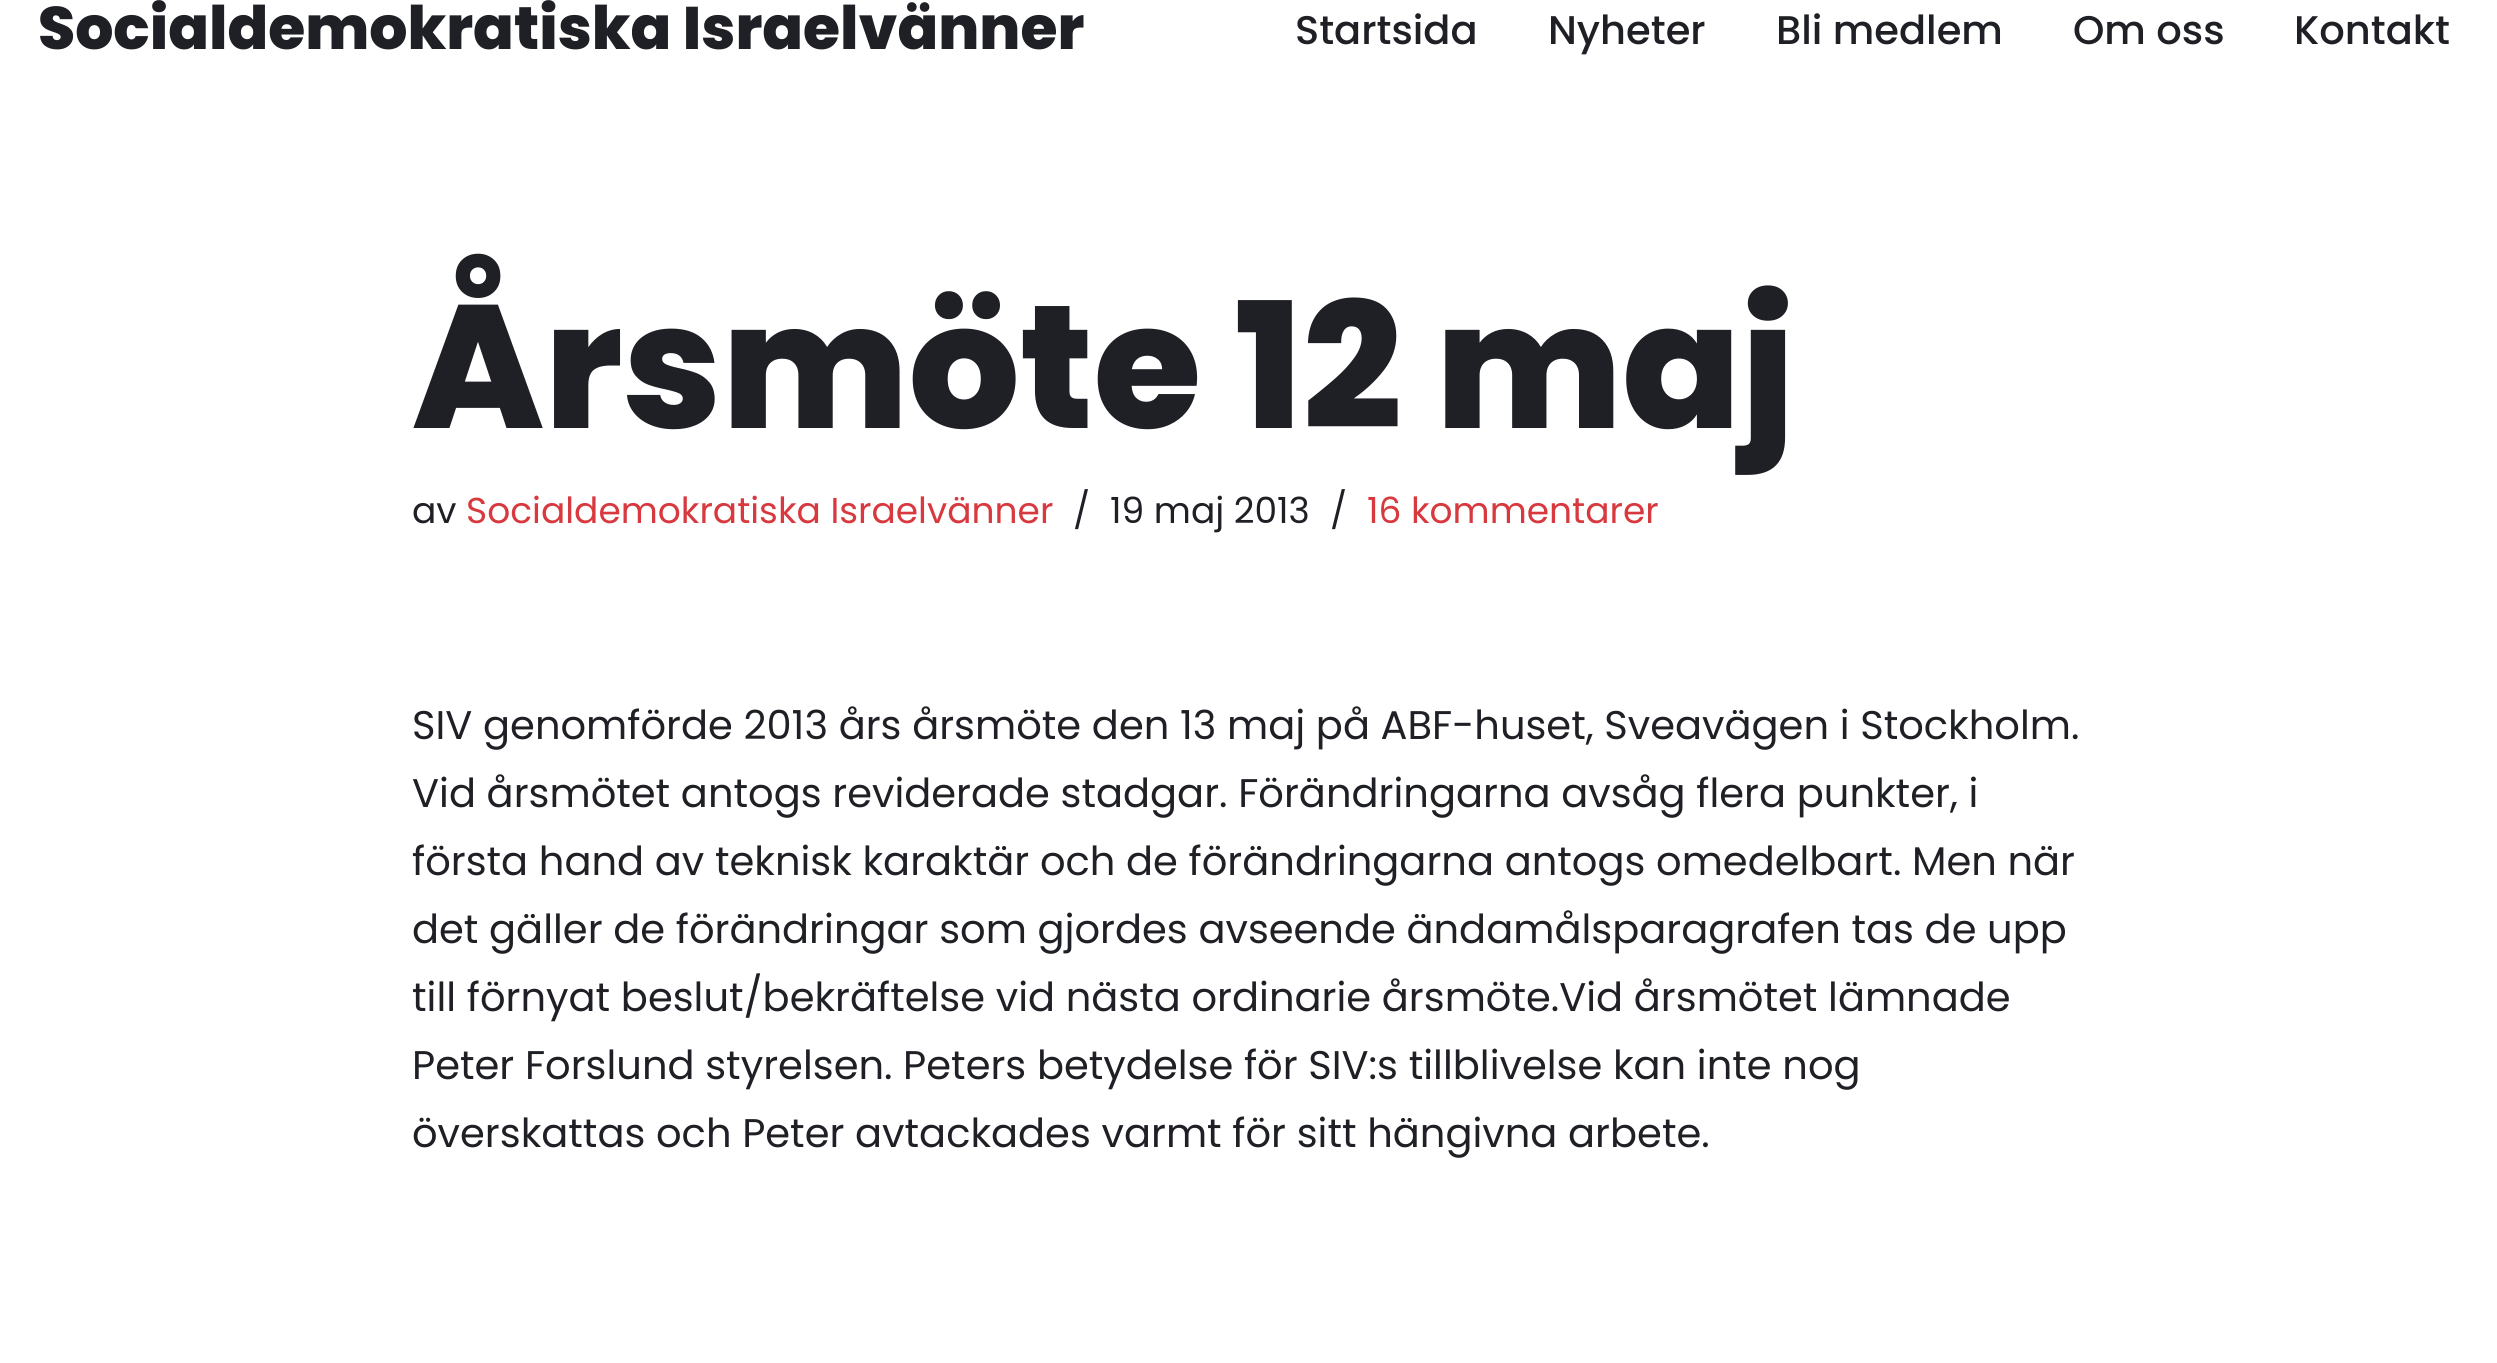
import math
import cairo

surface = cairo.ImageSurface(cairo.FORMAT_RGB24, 2497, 1363)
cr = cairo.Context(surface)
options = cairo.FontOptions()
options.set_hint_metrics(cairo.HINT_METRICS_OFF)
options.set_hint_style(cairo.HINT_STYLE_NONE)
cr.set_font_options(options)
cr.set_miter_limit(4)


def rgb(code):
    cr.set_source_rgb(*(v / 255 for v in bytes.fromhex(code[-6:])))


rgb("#ffffff")
cr.paint()
cr.select_font_face("Poppins ExtraBold")
cr.set_font_size(60)
rgb("#1f2025")
cr.move_to(38, 49)
cr.show_text("Socialdemokratiska Israelvänner")
cr.select_font_face("Poppins Medium")
cr.set_font_size(40)
for x, y, s in [
    (1295, 44, "Startsida"),
    (1548, 44, "Nyheter"),
    (1776, 44, "Bli medlem"),
    (2073, 44, "Om oss"),
    (2294, 44, "Kontakt"),
]:
    cr.move_to(x, y)
    cr.show_text(s)
cr.select_font_face("Poppins ExtraBold")
cr.set_font_size(175)
cr.move_to(412, 428)
cr.show_text("Årsmöte 12 maj")
cr.select_font_face("Poppins")
cr.set_font_size(36)
cr.move_to(412, 523)
cr.show_text("av")
rgb("#d7393e")
cr.move_to(466, 523)
cr.show_text("Socialdemokratiska Israelvänner")
rgb("#1f2025")
for x, y, s in [
    (1073, 523, "/"),
    (1110, 523, "19 maj 2013"),
    (1330, 523, "/"),
]:
    cr.move_to(x, y)
    cr.show_text(s)
rgb("#d7393e")
cr.move_to(1367, 523)
cr.show_text("16 kommentarer")
cr.set_font_size(40)
rgb("#1f2025")
for x, y, s in [
    (412, 739, "SIV genomförde 2013 års årsmöte den 13 maj på ABF-huset, Sveavägen i Stockholm."),
    (412, 807, "Vid årsmötet antogs reviderade stadgar. Förändringarna avsåg flera punkter, i"),
    (412, 875, "första hand av teknisk karaktär och de förändringarna antogs omedelbart. Men när"),
    (412, 943, "det gäller de förändringar som gjordes avseende ändamålsparagrafen tas de upp"),
    (412, 1011, "till förnyat beslut/bekräftelse vid nästa ordinarie årsmöte.Vid årsmötet lämnade"),
    (412, 1079, "Peter Forslund styrelsen. Peters betydelse för SIV:s tillblivelse kan inte nog"),
    (412, 1147, "överskattas och Peter avtackades varmt för sitt hängivna arbete."),
]:
    cr.move_to(x, y)
    cr.show_text(s)
surface.write_to_png("page.png")
